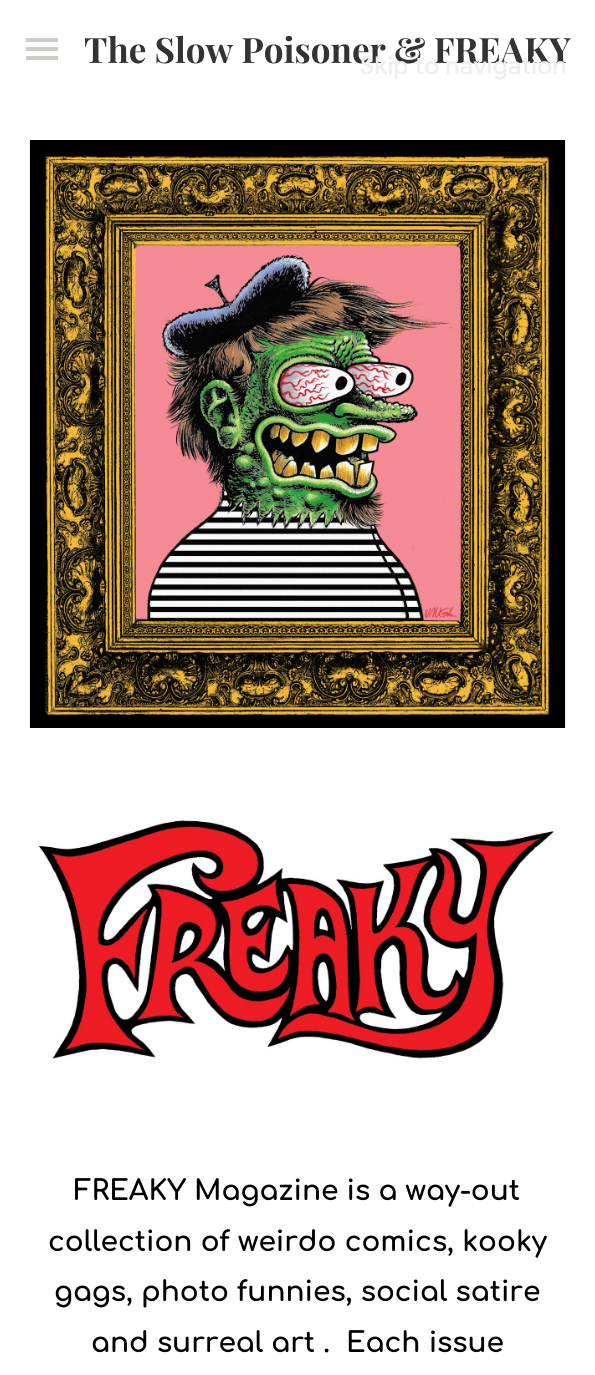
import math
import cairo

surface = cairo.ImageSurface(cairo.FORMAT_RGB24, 595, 1375)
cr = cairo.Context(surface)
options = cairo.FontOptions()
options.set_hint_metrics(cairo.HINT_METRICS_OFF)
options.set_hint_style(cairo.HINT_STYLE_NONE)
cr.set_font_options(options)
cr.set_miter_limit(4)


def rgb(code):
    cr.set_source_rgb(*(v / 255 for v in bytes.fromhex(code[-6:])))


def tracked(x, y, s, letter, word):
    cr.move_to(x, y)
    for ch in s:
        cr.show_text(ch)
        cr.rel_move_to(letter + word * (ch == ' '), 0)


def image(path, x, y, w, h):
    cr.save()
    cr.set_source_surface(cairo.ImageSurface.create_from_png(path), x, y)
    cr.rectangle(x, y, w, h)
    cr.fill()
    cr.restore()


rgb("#ffffff")
cr.paint()
rgb("#c8c5c1")
cr.rectangle(26, 38, 32, 4)
cr.rectangle(26, 47, 32, 4)
cr.fill()
cr.set_source_rgba(0.753, 0.741, 0.722, 0.88)
cr.rectangle(26, 56, 32, 4)
cr.fill()
cr.set_source_rgba(1, 1, 1, 0.12)
cr.rectangle(26, 38, 32, 22)
cr.fill()
image("img/1.png", 29, 140, 537, 588)
image("img/2.png", 38, 820, 516, 239)
cr.select_font_face("Playfair Display", cairo.FONT_SLANT_NORMAL, cairo.FONT_WEIGHT_BOLD)
cr.set_font_size(35)
rgb("#333333")
cr.move_to(84, 63)
cr.show_text("The Slow Poisoner & FREAKY")
cr.select_font_face("Comfortaa", cairo.FONT_SLANT_NORMAL, cairo.FONT_WEIGHT_BOLD)
cr.set_font_size(28)
rgb("#000000")
for x, y, s in [
    (74, 1200, "FREAKY Magazine is a way-out"),
    (48, 1251, "collection of weirdo comics, kooky"),
    (54, 1301, "gags, photo funnies, social satire"),
    (91, 1352, "and surreal art ."),
    (346, 1352, "Each issue"),
]:
    cr.move_to(x, y)
    cr.show_text(s)
cr.select_font_face("Google Sans Medium")
cr.set_font_size(24.5)
rgb("#eeeeee")
tracked(360, 74, "Skip to navigation", 0.25, 0)
surface.write_to_png("page.png")
